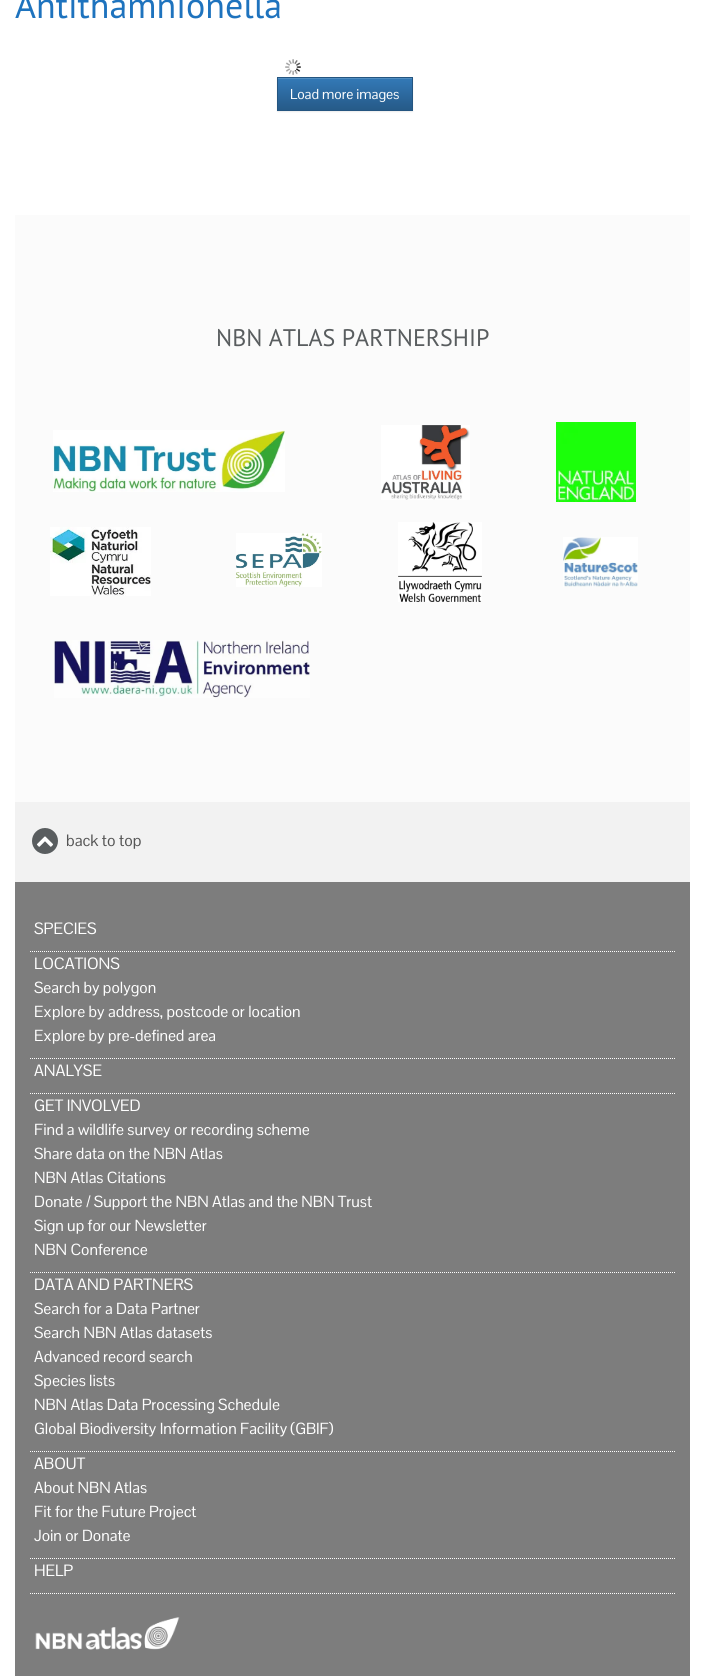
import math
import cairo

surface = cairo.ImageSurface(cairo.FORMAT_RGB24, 705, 1676)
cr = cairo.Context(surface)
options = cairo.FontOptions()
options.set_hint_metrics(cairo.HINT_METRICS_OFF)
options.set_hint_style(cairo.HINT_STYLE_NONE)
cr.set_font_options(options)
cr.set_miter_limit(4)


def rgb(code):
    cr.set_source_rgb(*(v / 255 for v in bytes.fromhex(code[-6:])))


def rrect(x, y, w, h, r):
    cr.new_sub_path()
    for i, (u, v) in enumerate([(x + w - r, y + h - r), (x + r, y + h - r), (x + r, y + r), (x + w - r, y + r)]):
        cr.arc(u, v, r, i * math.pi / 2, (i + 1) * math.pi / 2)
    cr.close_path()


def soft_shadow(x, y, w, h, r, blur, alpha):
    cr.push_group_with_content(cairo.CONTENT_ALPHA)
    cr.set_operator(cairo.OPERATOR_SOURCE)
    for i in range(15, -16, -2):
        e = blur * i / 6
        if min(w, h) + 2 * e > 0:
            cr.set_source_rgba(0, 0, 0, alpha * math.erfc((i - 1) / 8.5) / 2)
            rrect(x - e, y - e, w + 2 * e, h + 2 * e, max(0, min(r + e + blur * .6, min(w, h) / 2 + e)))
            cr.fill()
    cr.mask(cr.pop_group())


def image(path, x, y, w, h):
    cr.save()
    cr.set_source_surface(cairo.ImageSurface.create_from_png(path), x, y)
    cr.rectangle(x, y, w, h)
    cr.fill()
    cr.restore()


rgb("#ffffff")
cr.paint()
image("img/1.png", 285, 59, 16, 16)
rgb("#000000")
soft_shadow(277, 78, 136, 34, 0, 0.5, 0.07)
gradient = cairo.LinearGradient(345, 78, 345, 110)
gradient.add_color_stop_rgba(0, 0.2, 0.478, 0.718, 1)
gradient.add_color_stop_rgba(1, 0.149, 0.353, 0.533, 1)
cr.set_source(gradient)
cr.rectangle(278, 79, 134, 31)
cr.fill()
rgb("#528ec1")
cr.rectangle(278, 78, 134, 1)
cr.fill()
cr.rectangle(277.5, 77.5, 135, 33)
rgb("#245580")
cr.set_line_width(1)
cr.stroke()
rgb("#fbfbfb")
cr.rectangle(15, 215, 675, 587)
cr.fill()
image("img/2.png", 53, 430, 232, 62)
image("img/3.png", 381, 425, 89, 75)
image("img/4.png", 556, 422, 80, 80)
image("img/5.png", 50, 527, 101, 69)
image("img/6.png", 236, 533, 86, 54)
image("img/7.png", 398, 522, 84, 80)
image("img/8.png", 563, 537, 75, 50)
image("img/9.png", 54, 640, 256, 58)
rgb("#f2f2f2")
cr.rectangle(15, 802, 675, 80)
cr.fill()
rgb("#595d5f")
cr.arc(45, 841, 13, 0, 2 * math.pi)
cr.fill()
image("img/10.png", 37, 836, 16, 11)
rgb("#7d7d7d")
cr.rectangle(15, 882, 675, 794)
cr.fill()
cr.new_path()
cr.move_to(30, 951.5)
cr.line_to(675, 951.5)
rgb("#ffffff")
cr.set_dash([1, 1])
cr.stroke()
cr.new_path()
cr.move_to(30, 1058.5)
cr.line_to(675, 1058.5)
cr.stroke()
cr.new_path()
cr.move_to(30, 1093.5)
cr.line_to(675, 1093.5)
cr.stroke()
cr.new_path()
cr.move_to(30, 1272.5)
cr.line_to(675, 1272.5)
cr.stroke()
cr.new_path()
cr.move_to(30, 1451.5)
cr.line_to(675, 1451.5)
cr.stroke()
cr.new_path()
cr.move_to(30, 1558.5)
cr.line_to(675, 1558.5)
cr.stroke()
cr.new_path()
cr.move_to(30, 1593.5)
cr.line_to(675, 1593.5)
cr.stroke()
image("img/11.png", 35, 1617, 145, 33)
cr.select_font_face("PT Sans")
cr.set_font_size(36)
rgb("#1e73be")
cr.move_to(15, 18)
cr.show_text("Antithamnionella")
cr.select_font_face("Pontano Sans")
cr.set_font_size(14)
rgb("#ffffff")
cr.move_to(290, 99)
cr.show_text("Load more images")
cr.select_font_face("PT Sans")
cr.set_font_size(24)
rgb("#595d5f")
cr.move_to(216, 346)
cr.show_text("NBN ATLAS PARTNERSHIP")
cr.select_font_face("Pontano Sans")
cr.set_font_size(16)
rgb("#555555")
cr.move_to(66, 846)
cr.show_text("back to top")
rgb("#ffffff")
cr.move_to(34, 934)
cr.show_text("SPECIES")
cr.move_to(34, 969)
cr.show_text("LOCATIONS")
cr.set_font_size(15.7)
for x, y, s in [
    (34, 993, "Search by polygon"),
    (34, 1017, "Explore by address, postcode or location"),
    (34, 1041, "Explore by pre-defined area"),
]:
    cr.move_to(x, y)
    cr.show_text(s)
cr.set_font_size(16)
cr.move_to(34, 1076)
cr.show_text("ANALYSE")
cr.move_to(34, 1111)
cr.show_text("GET INVOLVED")
cr.set_font_size(15.7)
for x, y, s in [
    (34, 1135, "Find a wildlife survey or recording scheme"),
    (34, 1159, "Share data on the NBN Atlas"),
    (34, 1183, "NBN Atlas Citations"),
    (34, 1207, "Donate / Support the NBN Atlas and the NBN Trust"),
    (34, 1231, "Sign up for our Newsletter"),
    (34, 1255, "NBN Conference"),
]:
    cr.move_to(x, y)
    cr.show_text(s)
cr.set_font_size(16)
cr.move_to(34, 1290)
cr.show_text("DATA AND PARTNERS")
cr.set_font_size(15.7)
for x, y, s in [
    (34, 1314, "Search for a Data Partner"),
    (34, 1338, "Search NBN Atlas datasets"),
    (34, 1362, "Advanced record search"),
    (34, 1386, "Species lists"),
    (34, 1410, "NBN Atlas Data Processing Schedule"),
    (34, 1434, "Global Biodiversity Information Facility (GBIF)"),
]:
    cr.move_to(x, y)
    cr.show_text(s)
cr.set_font_size(16)
cr.move_to(34, 1469)
cr.show_text("ABOUT")
cr.set_font_size(15.7)
for x, y, s in [
    (34, 1493, "About NBN Atlas"),
    (34, 1517, "Fit for the Future Project"),
    (34, 1541, "Join or Donate"),
]:
    cr.move_to(x, y)
    cr.show_text(s)
cr.set_font_size(16)
cr.move_to(34, 1576)
cr.show_text("HELP")
surface.write_to_png("page.png")
